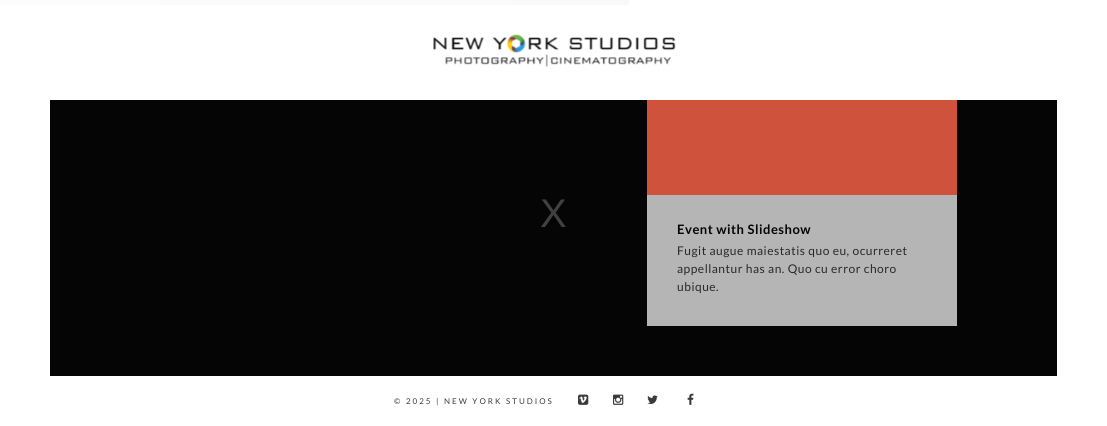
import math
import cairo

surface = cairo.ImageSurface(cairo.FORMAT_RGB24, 1107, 426)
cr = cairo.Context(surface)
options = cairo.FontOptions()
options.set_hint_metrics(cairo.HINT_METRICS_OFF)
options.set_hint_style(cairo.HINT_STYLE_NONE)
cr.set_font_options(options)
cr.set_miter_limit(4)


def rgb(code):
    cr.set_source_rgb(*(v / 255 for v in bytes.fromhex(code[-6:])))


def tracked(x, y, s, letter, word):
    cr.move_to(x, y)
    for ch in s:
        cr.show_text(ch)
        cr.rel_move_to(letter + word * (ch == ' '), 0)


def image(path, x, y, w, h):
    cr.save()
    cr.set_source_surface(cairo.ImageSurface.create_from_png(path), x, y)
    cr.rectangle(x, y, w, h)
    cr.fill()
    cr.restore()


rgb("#050505")
cr.paint()
rgb("#ffffff")
cr.rectangle(0, 0, 1107, 100)
cr.fill()
image("img/1.png", 433, 34, 243, 33)
gradient = cairo.LinearGradient(-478, 2.5, 629, 2.5)
gradient.add_color_stop_rgba(0, 1, 1, 1, 1)
gradient.add_color_stop_rgba(1, 0.976, 0.976, 0.976, 1)
cr.set_source(gradient)
cr.rectangle(0, 0, 629, 5)
cr.fill()
for x, y, w, h, color in [
    (0, 100, 50, 276, "#ffffff"),
    (1057, 100, 50, 276, "#ffffff"),
    (647, 195, 310, 131, "#b5b5b5"),
    (647, 100, 310, 95, "#cf523c"),
    (0, 376, 1107, 50, "#ffffff"),
]:
    rgb(color)
    cr.rectangle(x, y, w, h)
    cr.fill()
image("img/2.png", 578, 394, 11, 11)
image("img/3.png", 613, 394, 11, 11)
image("img/4.png", 647, 395, 11, 9)
image("img/5.png", 687, 393, 7, 12)
cr.select_font_face("Liberation Sans")
cr.set_font_size(40)
rgb("#414141")
cr.move_to(540, 227)
cr.show_text("X")
cr.select_font_face("Lato", cairo.FONT_SLANT_NORMAL, cairo.FONT_WEIGHT_BOLD)
cr.set_font_size(13)
rgb("#050505")
tracked(677, 234, "Event with Slideshow", 0.5, 0)
cr.select_font_face("Lato")
cr.set_font_size(12)
rgb("#282828")
for x, y, s in [
    (677, 255, "Fugit augue maiestatis quo eu, ocurreret"),
    (677, 273, "appellantur has an. Quo cu error choro"),
    (677, 291, "ubique."),
]:
    tracked(x, y, s, 0.5, 0)
cr.set_font_size(8)
rgb("#3a3a3a")
tracked(394, 404, "© 2025 | NEW YORK STUDIOS", 2, 0)
surface.write_to_png("page.png")
